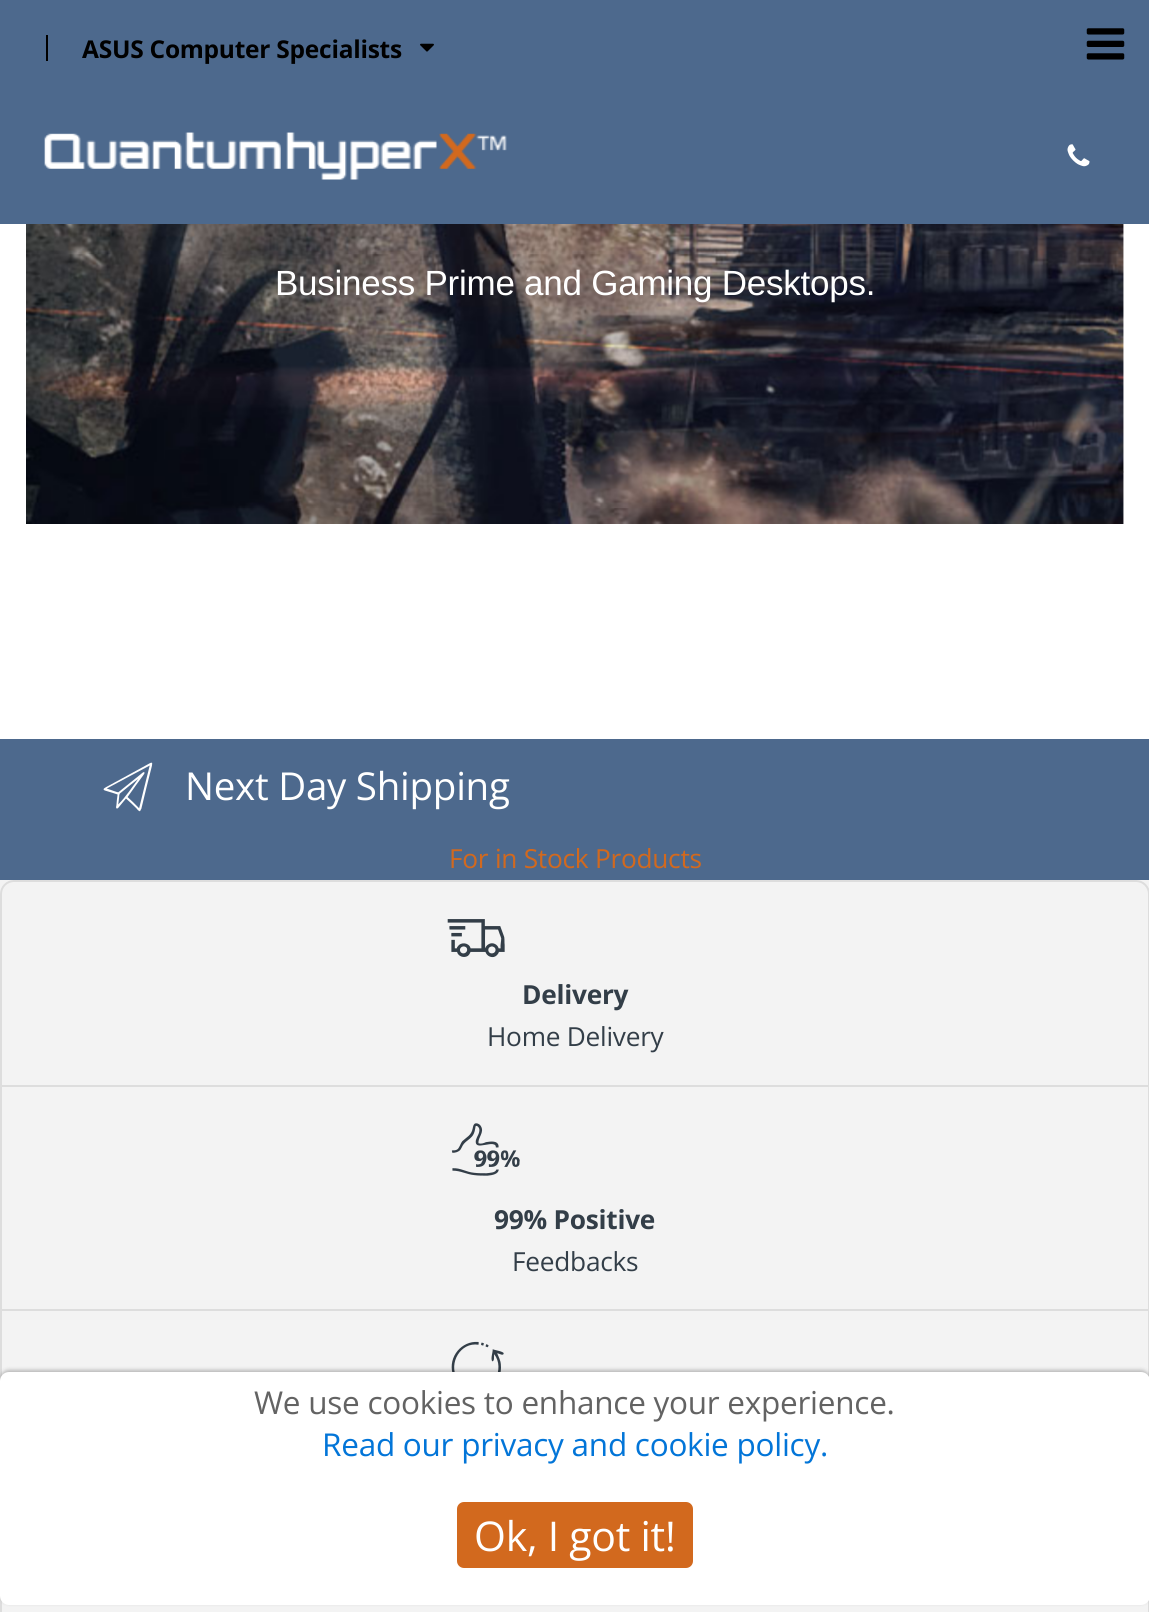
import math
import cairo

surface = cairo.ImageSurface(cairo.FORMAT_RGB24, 1149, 1612)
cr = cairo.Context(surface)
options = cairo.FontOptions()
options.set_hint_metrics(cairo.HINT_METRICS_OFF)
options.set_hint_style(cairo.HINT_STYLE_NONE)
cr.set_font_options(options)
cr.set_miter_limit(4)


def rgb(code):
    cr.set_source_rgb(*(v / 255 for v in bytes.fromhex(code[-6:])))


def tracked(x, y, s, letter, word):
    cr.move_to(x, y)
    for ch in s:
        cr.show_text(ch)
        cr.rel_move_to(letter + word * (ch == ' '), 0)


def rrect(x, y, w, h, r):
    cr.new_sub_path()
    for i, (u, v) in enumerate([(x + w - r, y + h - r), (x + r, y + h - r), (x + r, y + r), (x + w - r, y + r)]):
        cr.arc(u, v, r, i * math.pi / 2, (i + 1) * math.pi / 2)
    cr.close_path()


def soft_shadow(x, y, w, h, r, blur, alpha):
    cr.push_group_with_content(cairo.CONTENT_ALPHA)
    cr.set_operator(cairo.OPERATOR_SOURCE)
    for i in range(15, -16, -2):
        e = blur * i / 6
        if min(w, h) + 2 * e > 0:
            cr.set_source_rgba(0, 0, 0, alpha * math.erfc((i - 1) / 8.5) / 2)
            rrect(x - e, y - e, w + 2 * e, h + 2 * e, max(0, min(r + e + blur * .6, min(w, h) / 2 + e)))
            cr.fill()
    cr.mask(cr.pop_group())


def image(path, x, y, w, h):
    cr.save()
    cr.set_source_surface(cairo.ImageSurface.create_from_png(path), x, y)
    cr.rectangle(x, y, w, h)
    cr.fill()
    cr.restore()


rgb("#ffffff")
cr.paint()
rgb("#4d698d")
cr.rectangle(0, 0, 1149, 224)
cr.fill()
rgb("#000000")
cr.rectangle(46, 35, 2, 26)
cr.fill()
image("img/1.png", 420, 43, 14, 9)
image("img/2.png", 1086, 28, 39, 32)
image("img/3.png", 44, 132, 463, 48)
image("img/4.png", 1067, 144, 23, 23)
rgb("#eaeaea")
cr.rectangle(1123, 471, 1, 2)
cr.fill()
image("img/5.png", 26, 224, 1098, 300)
rgb("#4d698d")
cr.rectangle(0, 739, 1149, 141)
cr.fill()
image("img/6.png", 103, 762, 50, 50)
rgb("#f3f3f3")
cr.rectangle(0, 880, 1149, 732)
cr.fill()
rrect(1, 881, 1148, 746, 13)
rgb("#dddddd")
cr.stroke()
cr.rectangle(2, 1085, 1146, 2)
cr.fill()
image("img/7.png", 447, 919, 58, 39)
cr.rectangle(2, 1309, 1146, 2)
cr.fill()
image("img/8.png", 451, 1123, 69, 53)
image("img/9.png", 451, 1341, 53, 31)
rgb("#000000")
soft_shadow(0, 1370, 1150, 233, 9, 2, 0.25)
rgb("#ffffff")
rrect(0, 1372, 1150, 233, 9)
cr.fill()
rgb("#d2691e")
rrect(457, 1502, 236, 66, 7)
cr.fill()
cr.select_font_face("Open Sans", cairo.FONT_SLANT_NORMAL, cairo.FONT_WEIGHT_BOLD)
cr.set_font_size(24.5)
rgb("#000000")
tracked(82, 58, "ASUS Computer Specialists", -0.25, 0)
cr.select_font_face("Liberation Sans")
cr.set_font_size(35)
rgb("#ffffff")
tracked(275, 295, "Business Prime and Gaming Desktops.", -0.25, 0)
cr.select_font_face("Open Sans")
cr.set_font_size(38.5)
tracked(185, 800, "Next Day Shipping", -0.25, 0)
cr.set_font_size(26.25)
rgb("#d2691e")
tracked(449, 868, "For in Stock Products", -0.25, 0)
cr.select_font_face("Open Sans", cairo.FONT_SLANT_NORMAL, cairo.FONT_WEIGHT_BOLD)
rgb("#333e48")
tracked(522, 1004, "Delivery", -0.25, 0)
cr.select_font_face("Open Sans")
tracked(487, 1046, "Home Delivery", -0.25, 0)
cr.select_font_face("Open Sans", cairo.FONT_SLANT_NORMAL, cairo.FONT_WEIGHT_BOLD)
tracked(494, 1229, "99% Positive", -0.25, 0)
cr.select_font_face("Open Sans")
tracked(512, 1271, "Feedbacks", -0.25, 0)
cr.set_font_size(31.5)
rgb("#636363")
tracked(254, 1414, "We use cookies to enhance your experience.", -0.25, 0)
rgb("#0275d8")
tracked(322, 1456, "Read our privacy and cookie policy.", -0.25, 0)
cr.set_font_size(41)
rgb("#ffffff")
tracked(474, 1551, "Ok, I got it!", -0.25, 0)
surface.write_to_png("page.png")
